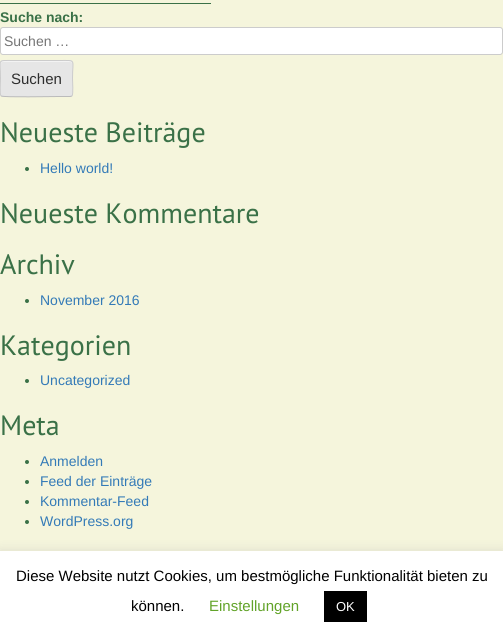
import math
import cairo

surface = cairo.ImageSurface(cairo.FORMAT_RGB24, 503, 639)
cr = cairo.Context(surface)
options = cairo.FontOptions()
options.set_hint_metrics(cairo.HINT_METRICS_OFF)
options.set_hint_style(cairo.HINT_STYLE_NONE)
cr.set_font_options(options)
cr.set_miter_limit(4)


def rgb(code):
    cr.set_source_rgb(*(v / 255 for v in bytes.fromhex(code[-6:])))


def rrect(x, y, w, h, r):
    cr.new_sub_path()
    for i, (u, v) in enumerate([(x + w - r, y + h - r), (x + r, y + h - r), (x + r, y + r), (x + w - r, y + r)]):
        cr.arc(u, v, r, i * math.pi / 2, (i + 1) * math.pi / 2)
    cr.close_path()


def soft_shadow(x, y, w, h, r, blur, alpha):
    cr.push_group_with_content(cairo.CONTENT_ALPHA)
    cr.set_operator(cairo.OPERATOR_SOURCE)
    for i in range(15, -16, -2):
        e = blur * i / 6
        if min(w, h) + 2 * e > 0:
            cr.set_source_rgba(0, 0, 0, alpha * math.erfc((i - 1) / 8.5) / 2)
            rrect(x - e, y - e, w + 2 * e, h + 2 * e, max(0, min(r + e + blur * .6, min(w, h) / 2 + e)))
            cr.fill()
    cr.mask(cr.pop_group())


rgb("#f5f5dc")
cr.paint()
rgb("#3a7147")
cr.rectangle(0, 3, 211, 1)
cr.fill()
rgb("#ffffff")
rrect(0.5, 27.5, 502, 27, 2.5)
cr.fill_preserve()
rgb("#cccccc")
cr.set_line_width(1)
cr.stroke()
rgb("#e6e6e6")
rrect(0, 60, 73, 37, 3)
cr.fill()
rgb("#f3f3f3")
cr.new_path()
cr.move_to(3, 62)
cr.line_to(70, 62)
cr.curve_to(71, 62, 72, 63, 72, 64)
cr.curve_to(72, 58, 62, 61, 59, 61)
cr.line_to(14, 61)
cr.curve_to(11, 61, 1, 58, 1, 64)
cr.curve_to(1, 63, 2, 62, 3, 62)
cr.close_path()
cr.fill()
cr.new_path()
cr.move_to(72, 96)
cr.line_to(70, 96.5)
cr.line_to(59, 96.5)
cr.curve_to(52.5, 96.5, 3.5, 97.5, 1.5, 96)
cr.line_to(1, 96)
rgb("#bbbbbb")
cr.stroke()
cr.new_path()
cr.move_to(1, 96)
cr.curve_to(-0.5, 94, 0.5, 81.5, 0.5, 78.5)
cr.curve_to(0.5, 58.5, -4, 60.5, 14, 60.5)
cr.line_to(59, 60.5)
cr.curve_to(77, 60.5, 72.5, 58.5, 72.5, 78.5)
cr.curve_to(72.5, 81.5, 73.5, 94, 72, 96)
rgb("#cccccc")
cr.stroke()
rgb("#3a7147")
cr.arc(27, 169, 2, 0, 2 * math.pi)
cr.fill()
cr.arc(27, 301, 2, 0, 2 * math.pi)
cr.fill()
cr.arc(27, 381, 2, 0, 2 * math.pi)
cr.fill()
cr.arc(27, 462, 2, 0, 2 * math.pi)
cr.fill()
cr.arc(27, 482, 2, 0, 2 * math.pi)
cr.fill()
cr.arc(27, 502, 2, 0, 2 * math.pi)
cr.fill()
cr.arc(27, 522, 2, 0, 2 * math.pi)
cr.fill()
rgb("#acabab")
soft_shadow(0, 550, 503, 88, 0, 5, 0.3)
rgb("#ffffff")
cr.rectangle(0, 551, 503, 88)
cr.fill()
rgb("#000000")
cr.rectangle(324, 591, 43, 31)
cr.fill()
cr.select_font_face("Liberation Sans", cairo.FONT_SLANT_NORMAL, cairo.FONT_WEIGHT_BOLD)
cr.set_font_size(14)
rgb("#3a7147")
cr.move_to(0, 22)
cr.show_text("Suche nach:")
cr.select_font_face("Liberation Sans")
rgb("#757575")
cr.move_to(4, 46)
cr.show_text("Suchen …")
cr.set_font_size(15)
rgb("#2e2e2e")
cr.move_to(11, 84)
cr.show_text("Suchen")
cr.select_font_face("PT Sans")
cr.set_font_size(28)
rgb("#3a7147")
cr.move_to(0, 142)
cr.show_text("Neueste Beiträge")
cr.select_font_face("Liberation Sans")
cr.set_font_size(14)
rgb("#337ab7")
cr.move_to(40, 173)
cr.show_text("Hello world!")
cr.select_font_face("PT Sans")
cr.set_font_size(28)
rgb("#3a7147")
cr.move_to(0, 223)
cr.show_text("Neueste Kommentare")
cr.move_to(0, 274)
cr.show_text("Archiv")
cr.select_font_face("Liberation Sans")
cr.set_font_size(14)
rgb("#337ab7")
cr.move_to(40, 305)
cr.show_text("November 2016")
cr.select_font_face("PT Sans")
cr.set_font_size(28)
rgb("#3a7147")
cr.move_to(0, 355)
cr.show_text("Kategorien")
cr.select_font_face("Liberation Sans")
cr.set_font_size(14)
rgb("#337ab7")
cr.move_to(40, 385)
cr.show_text("Uncategorized")
cr.select_font_face("PT Sans")
cr.set_font_size(28)
rgb("#3a7147")
cr.move_to(0, 435)
cr.show_text("Meta")
cr.select_font_face("Liberation Sans")
cr.set_font_size(14)
rgb("#337ab7")
for x, y, s in [
    (40, 466, "Anmelden"),
    (40, 486, "Feed der Einträge"),
    (40, 506, "Kommentar-Feed"),
    (40, 526, "WordPress.org"),
]:
    cr.move_to(x, y)
    cr.show_text(s)
cr.set_font_size(15)
rgb("#000000")
cr.move_to(16, 581)
cr.show_text("Diese Website nutzt Cookies, um bestmögliche Funktionalität bieten zu")
cr.move_to(131, 611)
cr.show_text("können.")
rgb("#62a329")
cr.move_to(209, 611)
cr.show_text("Einstellungen")
cr.set_font_size(13)
rgb("#ffffff")
cr.move_to(336, 611)
cr.show_text("OK")
surface.write_to_png("page.png")
